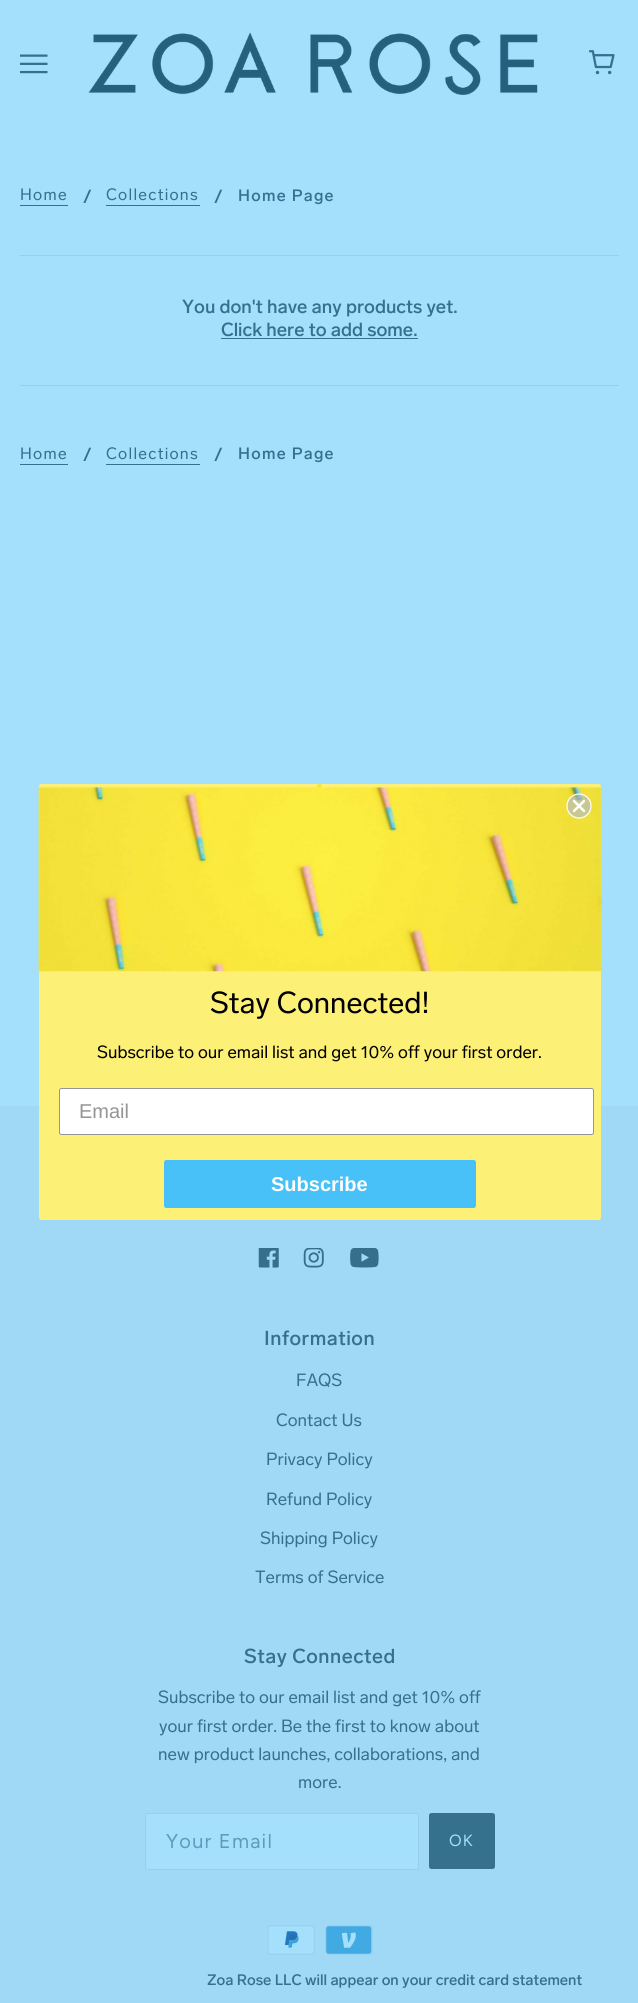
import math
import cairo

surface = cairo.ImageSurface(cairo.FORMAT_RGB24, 638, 2003)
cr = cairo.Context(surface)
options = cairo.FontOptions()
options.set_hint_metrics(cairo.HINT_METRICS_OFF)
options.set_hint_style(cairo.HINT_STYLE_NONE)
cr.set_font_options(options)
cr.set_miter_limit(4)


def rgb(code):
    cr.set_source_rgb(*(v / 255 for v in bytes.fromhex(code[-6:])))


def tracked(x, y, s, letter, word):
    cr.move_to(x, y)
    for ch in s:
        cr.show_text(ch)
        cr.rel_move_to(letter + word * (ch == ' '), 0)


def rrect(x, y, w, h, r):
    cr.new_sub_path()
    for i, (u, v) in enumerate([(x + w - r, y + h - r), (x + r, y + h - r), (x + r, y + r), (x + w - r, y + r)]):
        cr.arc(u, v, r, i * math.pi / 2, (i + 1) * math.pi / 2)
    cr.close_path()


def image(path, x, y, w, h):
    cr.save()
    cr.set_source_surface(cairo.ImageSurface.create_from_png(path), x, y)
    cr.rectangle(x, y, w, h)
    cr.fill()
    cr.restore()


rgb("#a4e0fc")
cr.paint()
image("img/1.png", 20, 54, 28, 20)
image("img/2.png", 88, 32, 450, 63)
image("img/3.png", 589, 50, 26, 25)
for x, y, w, h, color in [
    (20, 205, 48, 1, "#35718d"),
    (106, 205, 94, 1, "#35718d"),
    (20, 255, 599, 1, "#94d0ec"),
    (221, 338, 197, 1, "#35718d"),
    (20, 385, 599, 1, "#94d0ec"),
    (20, 464, 48, 1, "#35718d"),
    (106, 464, 94, 1, "#35718d"),
    (0, 1106, 638, 897, "#a0d9f5"),
]:
    rgb(color)
    cr.rectangle(x, y, w, h)
    cr.fill()
image("img/4.png", 258, 1248, 21, 20)
image("img/5.png", 303, 1248, 21, 20)
image("img/6.png", 350, 1248, 29, 20)
rgb("#a4e0fc")
rrect(145.5, 1813.5, 273, 56, 2)
cr.fill_preserve()
rgb("#94d0ec")
cr.set_line_width(1)
cr.stroke()
rgb("#35718d")
rrect(429, 1813, 66, 56, 2.5)
cr.fill()
image("img/7.png", 268, 1925, 47, 30)
image("img/8.png", 325, 1925, 48, 30)
rgb("#fcf076")
rrect(39, 784, 562, 436, 2.5)
cr.fill()
image("img/9.png", 317, 783, 5, 5)
image("img/10.png", 38, 787, 564, 185)
cr.set_source_rgba(0.706, 0.733, 0.765, 0.65)
cr.arc(579, 806, 12, 0, 2 * math.pi)
cr.fill_preserve()
rgb("#ffffff")
cr.set_line_width(1.2)
cr.stroke()
cr.new_path()
cr.move_to(574, 801)
cr.line_to(584, 811)
cr.move_to(574, 811)
cr.line_to(584, 801)
cr.close_path()
cr.set_line_width(2.5)
cr.set_line_cap(cairo.LINE_CAP_ROUND)
cr.set_line_join(cairo.LINE_JOIN_ROUND)
cr.stroke()
rrect(59.5, 1088.5, 534, 46, 2)
cr.fill_preserve()
rgb("#949596")
cr.set_line_width(1)
cr.set_line_cap(cairo.LINE_CAP_BUTT)
cr.set_line_join(cairo.LINE_JOIN_MITER)
cr.stroke()
rgb("#48c0f8")
rrect(164, 1160, 312, 48, 2.5)
cr.fill()
cr.select_font_face("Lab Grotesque")
cr.set_font_size(16.25)
rgb("#35718d")
tracked(20, 200, "Home", 1.25, 0)
cr.select_font_face("Lab Grotesque Medium")
cr.set_font_size(18.75)
cr.move_to(83, 203)
cr.show_text("/")
cr.select_font_face("Lab Grotesque")
cr.set_font_size(16.25)
tracked(106, 200, "Collections", 1.25, 0)
cr.select_font_face("Lab Grotesque Medium")
cr.set_font_size(18.75)
cr.move_to(214, 203)
cr.show_text("/")
cr.set_font_size(16.25)
tracked(238, 201, "Home Page", 1.25, 0)
cr.set_font_size(18.75)
cr.move_to(182, 313)
cr.show_text("You don't have any products yet.")
cr.move_to(221, 336)
cr.show_text("Click here to add some.")
cr.select_font_face("Lab Grotesque")
cr.set_font_size(16.25)
tracked(20, 459, "Home", 1.25, 0)
cr.select_font_face("Lab Grotesque Medium")
cr.set_font_size(18.75)
cr.move_to(83, 461)
cr.show_text("/")
cr.select_font_face("Lab Grotesque")
cr.set_font_size(16.25)
tracked(106, 459, "Collections", 1.25, 0)
cr.select_font_face("Lab Grotesque Medium")
cr.set_font_size(18.75)
cr.move_to(214, 461)
cr.show_text("/")
cr.set_font_size(16.25)
tracked(238, 459, "Home Page", 1.25, 0)
cr.set_font_size(20)
tracked(264, 1345, "Information", 0.5, 0)
cr.select_font_face("Lab Grotesque")
cr.set_font_size(17.5)
for x, y, s in [
    (296, 1386, "FAQS"),
    (276, 1426, "Contact Us"),
    (266, 1465, "Privacy Policy"),
    (266, 1505, "Refund Policy"),
    (260, 1544, "Shipping Policy"),
    (255, 1583, "Terms of Service"),
]:
    cr.move_to(x, y)
    cr.show_text(s)
cr.select_font_face("Lab Grotesque Medium")
cr.set_font_size(20)
tracked(244, 1663, "Stay Connected", 0.5, 0)
cr.select_font_face("Lab Grotesque")
cr.set_font_size(17.5)
for x, y, s in [
    (158, 1703, "Subscribe to our email list and get 10% off"),
    (159, 1732, "your first order. Be the first to know about"),
    (158, 1760, "new product launches, collaborations, and"),
    (298, 1788, "more."),
]:
    cr.move_to(x, y)
    cr.show_text(s)
cr.select_font_face("Figtree")
cr.set_font_size(20)
rgb("#5f9bb7")
tracked(166, 1848, "Your Email", 1.25, 0)
cr.set_font_size(16.25)
rgb("#a4e0fc")
tracked(449, 1846, "OK", 1.25, 0)
cr.select_font_face("Lab Grotesque Medium")
cr.set_font_size(15)
rgb("#35718d")
cr.move_to(207, 1985)
cr.show_text("Zoa Rose LLC will appear on your credit card statement")
cr.select_font_face("Lab Grotesque")
cr.set_font_size(30)
rgb("#000000")
cr.move_to(210, 1013)
cr.show_text("Stay Connected!")
cr.set_font_size(17.5)
cr.move_to(97, 1058)
cr.show_text("Subscribe to our email list and get 10% off your first order.")
cr.select_font_face("Liberation Sans")
cr.set_font_size(20)
rgb("#949596")
cr.move_to(79, 1118)
cr.show_text("Email")
cr.select_font_face("Liberation Sans", cairo.FONT_SLANT_NORMAL, cairo.FONT_WEIGHT_BOLD)
rgb("#ffffff")
cr.move_to(271, 1191)
cr.show_text("Subscribe")
surface.write_to_png("page.png")
